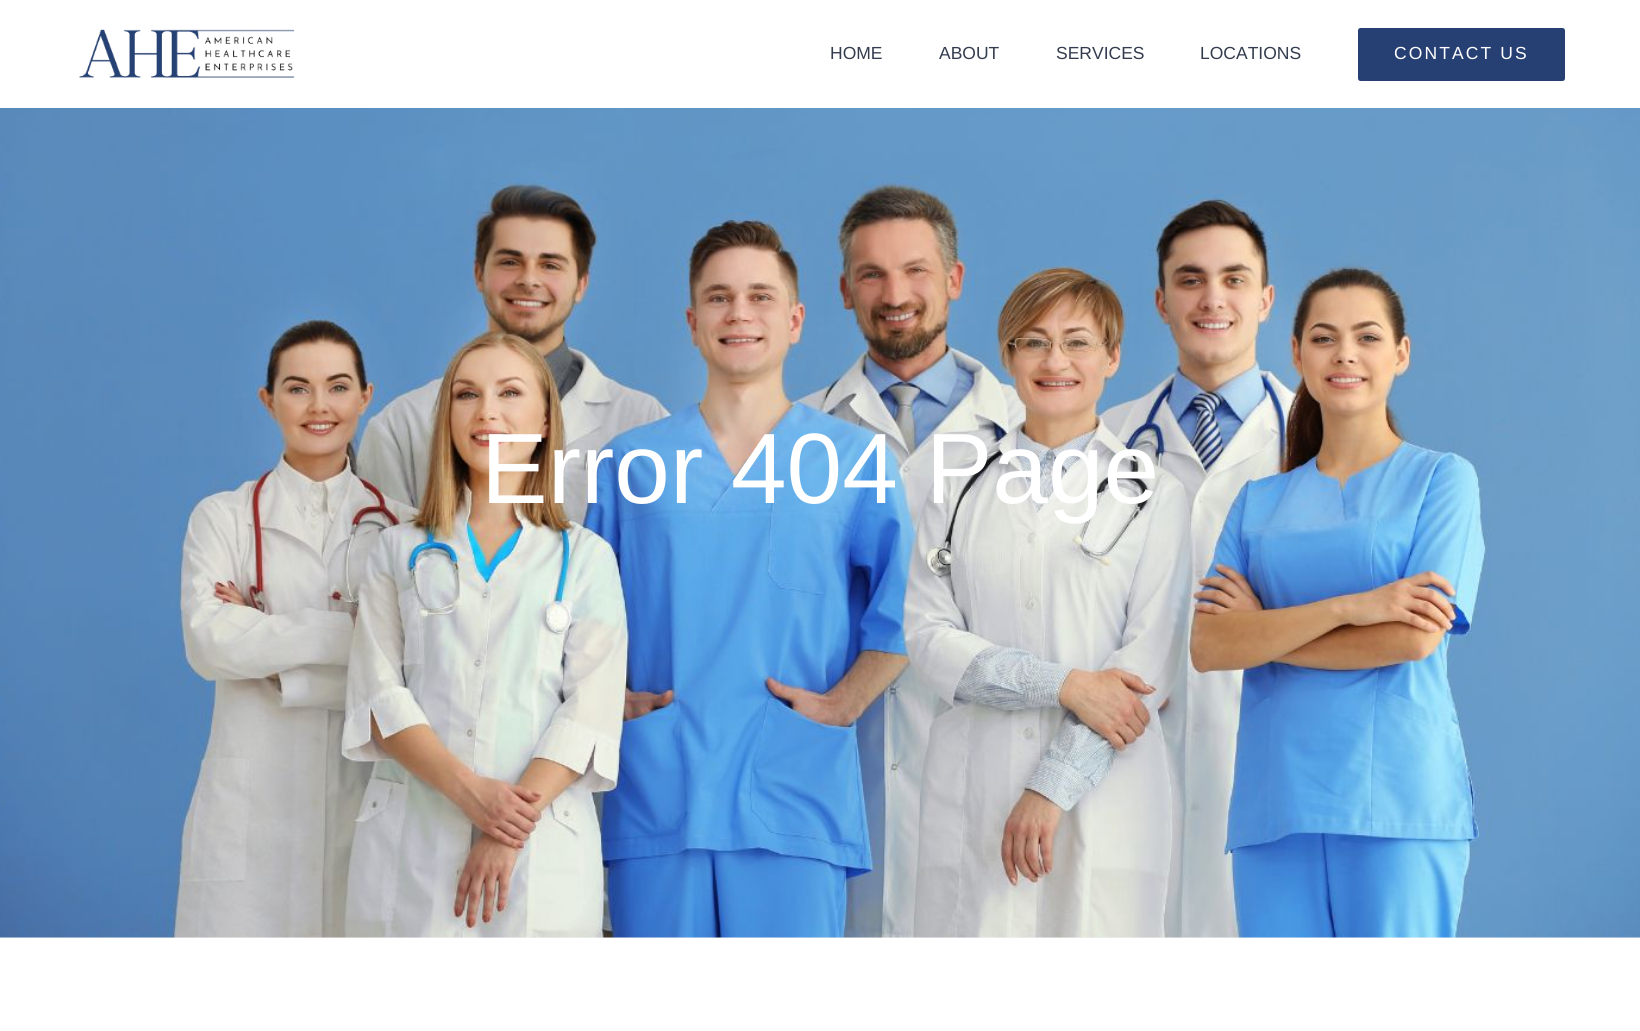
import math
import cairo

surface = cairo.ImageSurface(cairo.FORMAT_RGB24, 1640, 1031)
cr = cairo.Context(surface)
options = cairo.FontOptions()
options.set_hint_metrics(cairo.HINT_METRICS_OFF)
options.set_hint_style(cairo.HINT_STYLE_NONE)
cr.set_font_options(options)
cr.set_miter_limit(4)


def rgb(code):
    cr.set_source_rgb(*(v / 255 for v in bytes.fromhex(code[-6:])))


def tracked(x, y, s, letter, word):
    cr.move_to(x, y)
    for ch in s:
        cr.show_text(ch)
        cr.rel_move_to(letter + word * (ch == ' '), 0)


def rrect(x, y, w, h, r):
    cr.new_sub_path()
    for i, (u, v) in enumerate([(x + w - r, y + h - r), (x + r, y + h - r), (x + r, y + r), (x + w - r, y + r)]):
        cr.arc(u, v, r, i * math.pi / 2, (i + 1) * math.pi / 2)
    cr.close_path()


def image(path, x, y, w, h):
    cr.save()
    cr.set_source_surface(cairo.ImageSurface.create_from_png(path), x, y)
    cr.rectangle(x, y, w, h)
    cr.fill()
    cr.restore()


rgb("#ffffff")
cr.paint()
image("img/1.png", 79, 29, 216, 49)
rgb("#274073")
rrect(1358, 28, 207, 53, 2.5)
cr.fill()
rgb("#f5f5f5")
cr.rectangle(0, 937, 1640, 1)
cr.fill()
image("img/2.png", 0, 108, 1640, 830)
cr.select_font_face("Liberation Sans")
cr.set_font_size(17.5)
rgb("#333c4e")
for x, y, s in [
    (830, 59, "HOME"),
    (939, 59, "ABOUT"),
    (1056, 59, "SERVICES"),
    (1200, 59, "LOCATIONS"),
]:
    cr.move_to(x, y)
    cr.show_text(s)
rgb("#ffffff")
tracked(1394, 59, "CONTACT US", 2.1, 0)
cr.set_font_size(100)
cr.move_to(481, 503)
cr.show_text("Error 404 Page")
surface.write_to_png("page.png")
